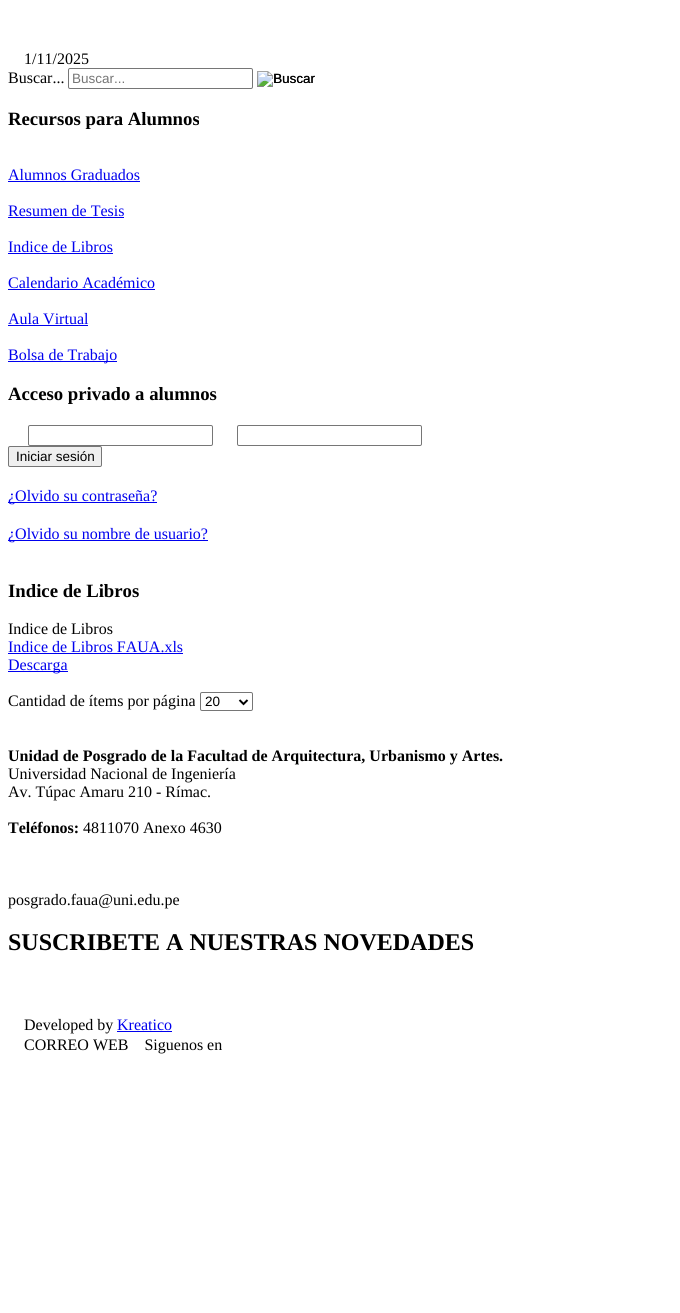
import math
import cairo

surface = cairo.ImageSurface(cairo.FORMAT_RGB24, 680, 1313)
cr = cairo.Context(surface)
options = cairo.FontOptions()
options.set_hint_metrics(cairo.HINT_METRICS_OFF)
options.set_hint_style(cairo.HINT_STYLE_NONE)
cr.set_font_options(options)
cr.set_miter_limit(4)


def rgb(code):
    cr.set_source_rgb(*(v / 255 for v in bytes.fromhex(code[-6:])))


def rrect(x, y, w, h, r):
    cr.new_sub_path()
    for i, (u, v) in enumerate([(x + w - r, y + h - r), (x + r, y + h - r), (x + r, y + r), (x + w - r, y + r)]):
        cr.arc(u, v, r, i * math.pi / 2, (i + 1) * math.pi / 2)
    cr.close_path()


def image(path, x, y, w, h):
    cr.save()
    cr.set_source_surface(cairo.ImageSurface.create_from_png(path), x, y)
    cr.rectangle(x, y, w, h)
    cr.fill()
    cr.restore()


rgb("#ffffff")
cr.paint()
rrect(68.5, 68.5, 184, 20, 1.5)
rgb("#767676")
cr.set_line_width(1)
cr.stroke()
image("img/1.png", 257, 71, 58, 16)
for x, y, w, h, color in [
    (8, 181, 132, 1, "#0000ee"),
    (8, 217, 116, 1, "#0000ee"),
    (8, 253, 105, 1, "#0000ee"),
    (8, 289, 147, 1, "#0000ee"),
    (8, 325, 80, 1, "#0000ee"),
    (8, 361, 109, 1, "#0000ee"),
]:
    rgb(color)
    cr.rectangle(x, y, w, h)
    cr.fill()
rrect(28.5, 425.5, 184, 20, 1.5)
rgb("#767676")
cr.stroke()
rrect(237.5, 425.5, 184, 20, 1.5)
cr.stroke()
rgb("#efefef")
rrect(8.5, 446.5, 93, 20, 1.5)
cr.fill_preserve()
rgb("#767676")
cr.stroke()
for x, y, w, h, color in [
    (8, 502, 149, 1, "#0000ee"),
    (8, 540, 200, 1, "#0000ee"),
    (8, 653, 175, 1, "#0000ee"),
    (8, 671, 60, 1, "#0000ee"),
]:
    rgb(color)
    cr.rectangle(x, y, w, h)
    cr.fill()
rrect(200.5, 692.5, 52, 18, 1.5)
rgb("#767676")
cr.stroke()
cr.new_path()
cr.move_to(239.5, 700)
cr.line_to(243.5, 704)
cr.line_to(247.5, 700)
rgb("#000000")
cr.set_line_width(2)
cr.stroke()
rgb("#0000ee")
cr.rectangle(117, 1031, 55, 1)
cr.fill()
cr.select_font_face("Liberation Serif")
cr.set_font_size(16)
rgb("#000000")
cr.move_to(24, 64)
cr.show_text("1/11/2025")
cr.move_to(8, 83)
cr.show_text("Buscar...")
cr.select_font_face("Liberation Sans")
cr.set_font_size(13.5)
rgb("#757575")
cr.move_to(72, 83)
cr.show_text("Buscar...")
rgb("#000000")
cr.move_to(273, 83)
cr.show_text("Buscar")
cr.select_font_face("Liberation Serif", cairo.FONT_SLANT_NORMAL, cairo.FONT_WEIGHT_BOLD)
cr.set_font_size(18.75)
cr.move_to(8, 125)
cr.show_text("Recursos para Alumnos")
cr.select_font_face("Liberation Serif")
cr.set_font_size(16)
rgb("#0000ee")
for x, y, s in [
    (8, 180, "Alumnos Graduados"),
    (8, 216, "Resumen de Tesis"),
    (8, 252, "Indice de Libros"),
    (8, 288, "Calendario Académico"),
    (8, 324, "Aula Virtual"),
    (8, 360, "Bolsa de Trabajo"),
]:
    cr.move_to(x, y)
    cr.show_text(s)
cr.select_font_face("Liberation Serif", cairo.FONT_SLANT_NORMAL, cairo.FONT_WEIGHT_BOLD)
cr.set_font_size(18.75)
rgb("#000000")
cr.move_to(8, 400)
cr.show_text("Acceso privado a alumnos")
cr.select_font_face("Liberation Sans")
cr.set_font_size(13.5)
cr.move_to(16, 461)
cr.show_text("Iniciar sesión")
cr.select_font_face("Liberation Serif")
cr.set_font_size(16)
rgb("#0000ee")
cr.move_to(8, 501)
cr.show_text("¿Olvido su contraseña?")
cr.move_to(8, 539)
cr.show_text("¿Olvido su nombre de usuario?")
cr.select_font_face("Liberation Serif", cairo.FONT_SLANT_NORMAL, cairo.FONT_WEIGHT_BOLD)
cr.set_font_size(18.75)
rgb("#000000")
cr.move_to(8, 597)
cr.show_text("Indice de Libros")
cr.select_font_face("Liberation Serif")
cr.set_font_size(16)
cr.move_to(8, 634)
cr.show_text("Indice de Libros")
rgb("#0000ee")
cr.move_to(8, 652)
cr.show_text("Indice de Libros FAUA.xls")
cr.move_to(8, 670)
cr.show_text("Descarga")
rgb("#000000")
cr.move_to(8, 706)
cr.show_text("Cantidad de ítems por página")
cr.select_font_face("Liberation Sans")
cr.set_font_size(13.5)
cr.move_to(205, 706)
cr.show_text("20")
cr.select_font_face("Liberation Serif", cairo.FONT_SLANT_NORMAL, cairo.FONT_WEIGHT_BOLD)
cr.set_font_size(16)
cr.move_to(8, 761)
cr.show_text("Unidad de Posgrado de la Facultad de Arquitectura, Urbanismo y Artes.")
cr.select_font_face("Liberation Serif")
cr.move_to(8, 779)
cr.show_text("Universidad Nacional de Ingeniería")
cr.move_to(8, 797)
cr.show_text("Av. Túpac Amaru 210 - Rímac.")
cr.select_font_face("Liberation Serif", cairo.FONT_SLANT_NORMAL, cairo.FONT_WEIGHT_BOLD)
cr.move_to(8, 833)
cr.show_text("Teléfonos:")
cr.select_font_face("Liberation Serif")
cr.move_to(83, 833)
cr.show_text("4811070 Anexo 4630")
cr.move_to(8, 905)
cr.show_text("posgrado.faua@uni.edu.pe")
cr.select_font_face("Liberation Serif", cairo.FONT_SLANT_NORMAL, cairo.FONT_WEIGHT_BOLD)
cr.set_font_size(24)
cr.move_to(8, 950)
cr.show_text("SUSCRIBETE A NUESTRAS NOVEDADES")
cr.select_font_face("Liberation Serif")
cr.set_font_size(16)
cr.move_to(24, 1030)
cr.show_text("Developed by")
rgb("#0000ee")
cr.move_to(117, 1030)
cr.show_text("Kreatico")
rgb("#000000")
cr.move_to(24, 1050)
cr.show_text("CORREO WEB    Siguenos en")
surface.write_to_png("page.png")
